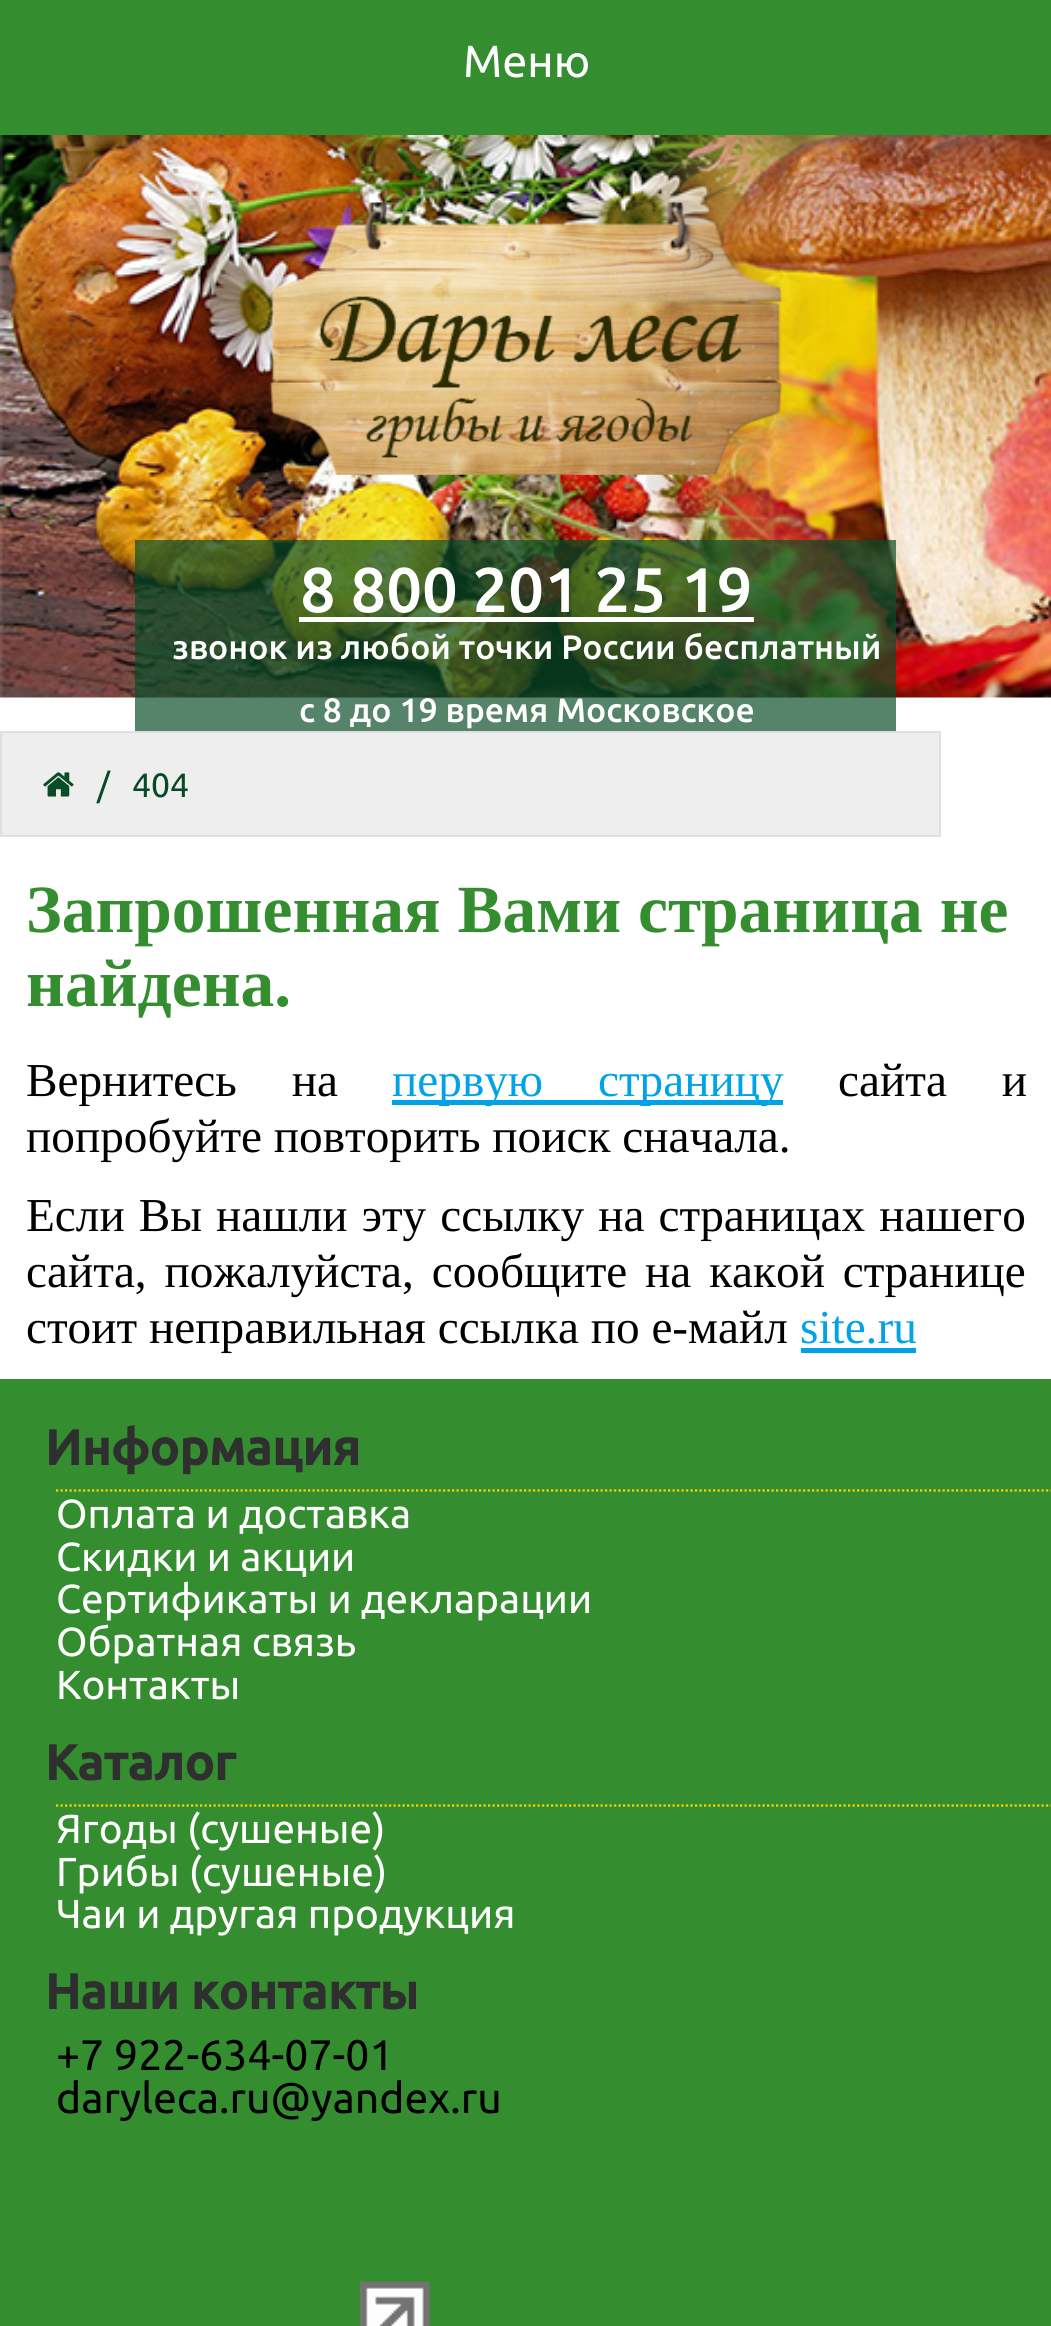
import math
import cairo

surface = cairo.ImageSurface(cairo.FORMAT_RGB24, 1051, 2326)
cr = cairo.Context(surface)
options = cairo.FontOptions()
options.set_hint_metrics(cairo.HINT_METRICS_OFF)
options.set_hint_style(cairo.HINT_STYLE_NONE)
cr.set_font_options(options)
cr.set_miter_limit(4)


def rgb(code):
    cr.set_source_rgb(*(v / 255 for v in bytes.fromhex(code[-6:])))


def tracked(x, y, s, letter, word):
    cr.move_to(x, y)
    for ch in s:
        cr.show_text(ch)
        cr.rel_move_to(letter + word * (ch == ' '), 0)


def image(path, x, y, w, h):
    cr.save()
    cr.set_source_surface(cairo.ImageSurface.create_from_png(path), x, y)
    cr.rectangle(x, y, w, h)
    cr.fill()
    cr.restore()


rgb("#ffffff")
cr.paint()
image("img/1.png", 0, 135, 1051, 563)
rgb("#348e2f")
cr.rectangle(0, 0, 1051, 135)
cr.fill()
image("img/2.png", 269, 202, 513, 273)
cr.set_source_rgba(0.035, 0.302, 0.153, 0.69)
cr.rectangle(135, 540, 761, 191)
cr.fill()
rgb("#ffffff")
cr.rectangle(299, 617, 455, 5)
cr.fill()
rgb("#eeeeee")
cr.rectangle(1, 732, 939, 104)
cr.fill_preserve()
rgb("#e1e0e0")
cr.stroke()
image("img/3.png", 43, 772, 31, 25)
for x, y, w, h, color in [
    (392, 1100, 391, 5, "#00a2e8"),
    (801, 1348, 115, 5, "#00a2e8"),
    (0, 1379, 1051, 947, "#348e2f"),
]:
    rgb(color)
    cr.rectangle(x, y, w, h)
    cr.fill()
cr.new_path()
cr.move_to(56, 1490.5)
cr.line_to(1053, 1490.5)
rgb("#ffd202")
cr.set_line_width(2.2)
cr.set_dash([2.25, 2.25])
cr.stroke()
cr.new_path()
cr.move_to(56, 1805.5)
cr.line_to(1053, 1805.5)
cr.stroke()
image("img/4.png", 360, 2281, 70, 45)
cr.select_font_face("Ubuntu")
cr.set_font_size(45)
rgb("#ffffff")
cr.move_to(463, 77)
cr.show_text("Меню")
cr.select_font_face("Ubuntu Medium")
cr.set_font_size(63)
cr.move_to(300, 612)
cr.show_text("8 800 201 25 19")
cr.set_font_size(33.75)
cr.move_to(172, 659)
cr.show_text("звонок из любой точки России бесплатный")
cr.move_to(299, 722)
cr.show_text("с 8 до 19 время Московское")
cr.select_font_face("Ubuntu")
rgb("#074a26")
cr.move_to(97, 797)
cr.show_text("/")
cr.move_to(132, 797)
cr.show_text("404")
cr.select_font_face("Liberation Serif", cairo.FONT_SLANT_NORMAL, cairo.FONT_WEIGHT_BOLD)
cr.set_font_size(67.5)
rgb("#348e2f")
cr.move_to(26, 932)
cr.show_text("Запрошенная Вами страница не")
cr.move_to(26, 1006)
cr.show_text("найдена.")
cr.select_font_face("Liberation Serif")
cr.set_font_size(47.25)
rgb("#000000")
tracked(26, 1096, "Вернитесь на", 0, 43)
rgb("#00a2e8")
tracked(392, 1096, "первую страницу", 0, 43)
rgb("#000000")
tracked(838, 1096, "сайта и", 0, 43)
cr.move_to(26, 1152)
cr.show_text("попробуйте повторить поиск сначала.")
tracked(26, 1231, "Если Вы нашли эту ссылку на страницах нашего", 0, 2.25)
tracked(26, 1287, "сайта, пожалуйста, сообщите на какой странице", 0, 6)
cr.move_to(26, 1343)
cr.show_text("стоит неправильная ссылка по е-майл")
rgb("#00a2e8")
cr.move_to(800, 1343)
cr.show_text("site.ru")
cr.select_font_face("Ubuntu", cairo.FONT_SLANT_NORMAL, cairo.FONT_WEIGHT_BOLD)
cr.set_font_size(49.5)
rgb("#2f2f2f")
cr.move_to(45, 1465)
cr.show_text("Информация")
cr.select_font_face("Ubuntu")
cr.set_font_size(40.5)
rgb("#ffffff")
for x, y, s in [
    (56, 1528, "Оплата и доставка"),
    (56, 1571, "Скидки и акции"),
    (56, 1613, "Сертификаты и декларации"),
    (56, 1656, "Обратная связь"),
    (56, 1699, "Контакты"),
]:
    cr.move_to(x, y)
    cr.show_text(s)
cr.select_font_face("Ubuntu", cairo.FONT_SLANT_NORMAL, cairo.FONT_WEIGHT_BOLD)
cr.set_font_size(49.5)
rgb("#2f2f2f")
cr.move_to(45, 1780)
cr.show_text("Каталог")
cr.select_font_face("Ubuntu")
cr.set_font_size(40.5)
rgb("#ffffff")
for x, y, s in [
    (56, 1843, "Ягоды (сушеные)"),
    (56, 1886, "Грибы (сушеные)"),
    (56, 1928, "Чаи и другая продукция"),
]:
    cr.move_to(x, y)
    cr.show_text(s)
cr.select_font_face("Ubuntu", cairo.FONT_SLANT_NORMAL, cairo.FONT_WEIGHT_BOLD)
cr.set_font_size(49.5)
rgb("#2f2f2f")
cr.move_to(45, 2009)
cr.show_text("Наши контакты")
cr.select_font_face("Ubuntu")
cr.set_font_size(42.75)
rgb("#000000")
cr.move_to(56, 2070)
cr.show_text("+7 922-634-07-01")
cr.move_to(56, 2113)
cr.show_text("daryleca.ru@yandex.ru")
surface.write_to_png("page.png")
